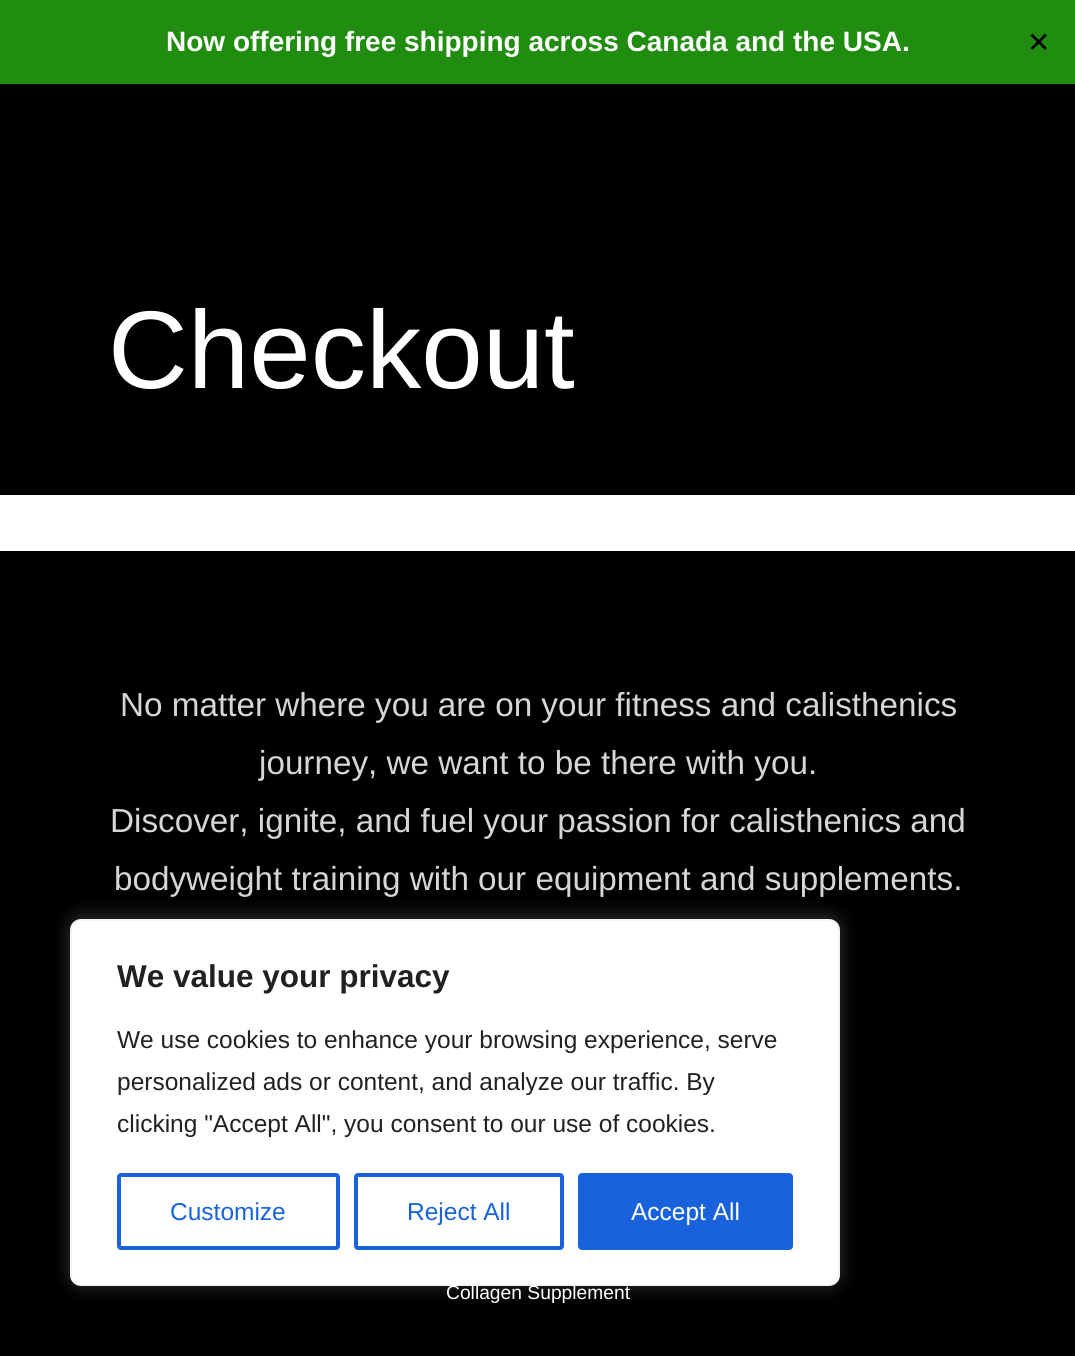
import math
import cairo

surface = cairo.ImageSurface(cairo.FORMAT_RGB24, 1075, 1356)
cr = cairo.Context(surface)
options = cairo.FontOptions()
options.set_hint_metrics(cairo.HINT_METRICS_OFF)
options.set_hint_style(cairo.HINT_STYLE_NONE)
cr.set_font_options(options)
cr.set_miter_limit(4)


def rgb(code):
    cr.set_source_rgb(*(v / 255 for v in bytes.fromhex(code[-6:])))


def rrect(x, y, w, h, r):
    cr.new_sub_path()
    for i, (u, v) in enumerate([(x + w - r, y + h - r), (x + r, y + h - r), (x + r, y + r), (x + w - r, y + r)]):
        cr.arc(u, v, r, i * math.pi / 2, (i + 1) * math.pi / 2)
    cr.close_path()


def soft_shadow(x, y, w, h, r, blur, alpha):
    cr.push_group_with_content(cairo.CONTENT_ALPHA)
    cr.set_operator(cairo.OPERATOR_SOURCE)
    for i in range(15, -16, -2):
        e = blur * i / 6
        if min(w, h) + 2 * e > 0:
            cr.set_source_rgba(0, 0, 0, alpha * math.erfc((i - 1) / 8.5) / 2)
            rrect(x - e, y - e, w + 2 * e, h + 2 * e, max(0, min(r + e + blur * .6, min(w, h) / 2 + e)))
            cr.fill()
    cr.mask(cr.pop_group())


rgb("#ffffff")
cr.paint()
for x, y, w, h, color in [
    (0, 0, 1075, 84, "#208d11"),
    (0, 84, 1075, 411, "#000000"),
    (0, 551, 1075, 805, "#000000"),
]:
    rgb(color)
    cr.rectangle(x, y, w, h)
    cr.fill()
rgb("#acabab")
soft_shadow(70, 917, 770, 368, 11, 9, 0.3)
rgb("#ffffff")
rrect(71, 920, 768, 365, 10)
cr.fill_preserve()
rgb("#f4f4f4")
cr.stroke()
rrect(119, 1175, 219, 73, 2)
rgb("#1863dc")
cr.set_line_width(4)
cr.stroke()
rrect(356, 1175, 206, 73, 2)
cr.stroke()
rrect(580, 1175, 211, 73, 2)
cr.fill_preserve()
cr.stroke()
cr.select_font_face("Liberation Sans", cairo.FONT_SLANT_NORMAL, cairo.FONT_WEIGHT_BOLD)
cr.set_font_size(28)
rgb("#ffffff")
cr.move_to(166, 51)
cr.show_text("Now offering free shipping across Canada and the USA.")
cr.select_font_face("DejaVu Sans")
rgb("#000000")
cr.move_to(1027, 52)
cr.show_text("✕")
cr.select_font_face("Liberation Sans")
cr.set_font_size(110.5)
rgb("#ffffff")
cr.move_to(108, 388)
cr.show_text("Checkout")
cr.set_font_size(33.25)
rgb("#d6d6d6")
for x, y, s in [
    (120, 716, "No matter where you are on your fitness and calisthenics"),
    (259, 774, "journey, we want to be there with you."),
    (110, 832, "Discover, ignite, and fuel your passion for calisthenics and"),
    (114, 890, "bodyweight training with our equipment and supplements."),
]:
    cr.move_to(x, y)
    cr.show_text(s)
cr.set_font_size(19.25)
rgb("#ffffff")
cr.move_to(446, 1299)
cr.show_text("Collagen Supplement")
cr.select_font_face("Liberation Sans", cairo.FONT_SLANT_NORMAL, cairo.FONT_WEIGHT_BOLD)
cr.set_font_size(31.5)
rgb("#212121")
cr.move_to(117, 987)
cr.show_text("We value your privacy")
cr.select_font_face("Liberation Sans")
cr.set_font_size(24.5)
for x, y, s in [
    (117, 1048, "We use cookies to enhance your browsing experience, serve"),
    (117, 1090, "personalized ads or content, and analyze our traffic. By"),
    (117, 1132, "clicking \"Accept All\", you consent to our use of cookies."),
]:
    cr.move_to(x, y)
    cr.show_text(s)
rgb("#1863dc")
cr.move_to(170, 1220)
cr.show_text("Customize")
cr.move_to(407, 1220)
cr.show_text("Reject All")
rgb("#ffffff")
cr.move_to(631, 1220)
cr.show_text("Accept All")
surface.write_to_png("page.png")
